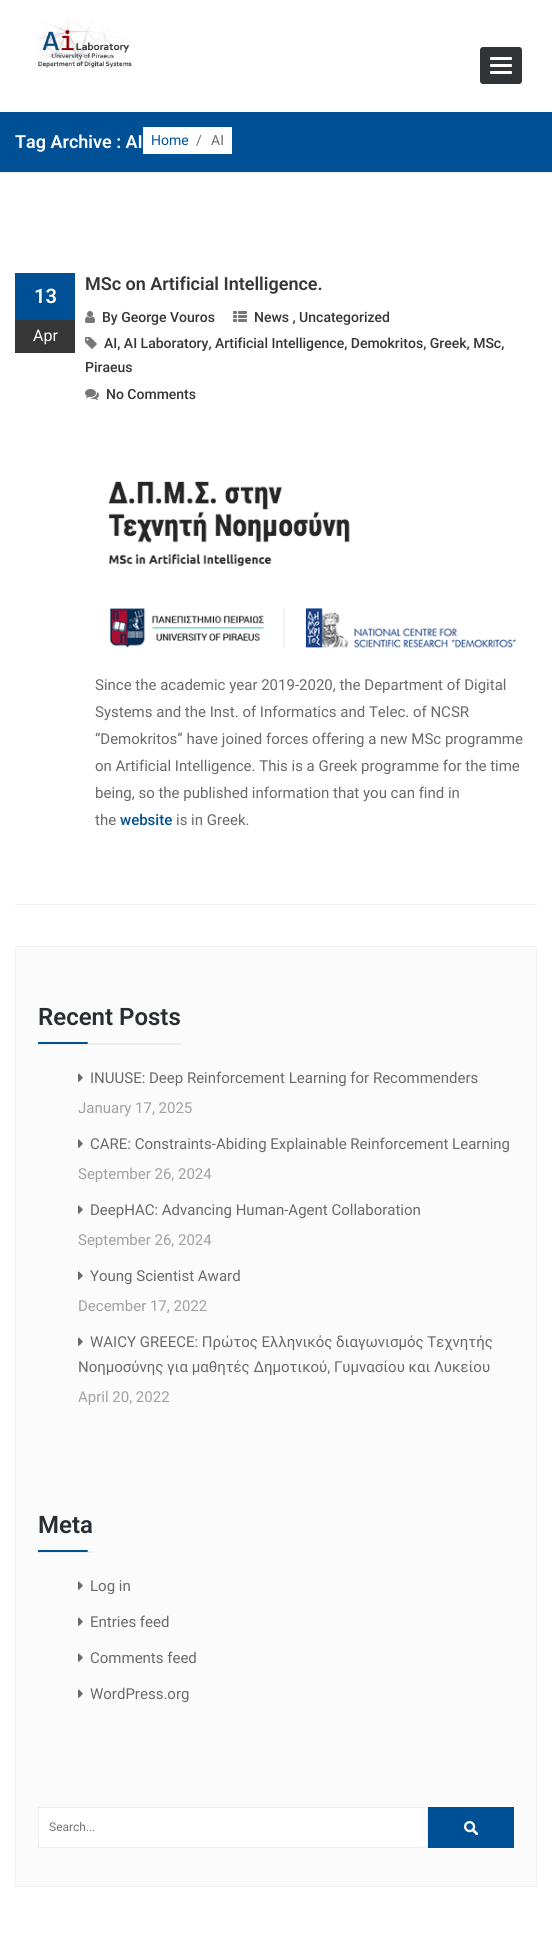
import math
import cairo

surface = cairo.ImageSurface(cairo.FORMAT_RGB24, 552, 1944)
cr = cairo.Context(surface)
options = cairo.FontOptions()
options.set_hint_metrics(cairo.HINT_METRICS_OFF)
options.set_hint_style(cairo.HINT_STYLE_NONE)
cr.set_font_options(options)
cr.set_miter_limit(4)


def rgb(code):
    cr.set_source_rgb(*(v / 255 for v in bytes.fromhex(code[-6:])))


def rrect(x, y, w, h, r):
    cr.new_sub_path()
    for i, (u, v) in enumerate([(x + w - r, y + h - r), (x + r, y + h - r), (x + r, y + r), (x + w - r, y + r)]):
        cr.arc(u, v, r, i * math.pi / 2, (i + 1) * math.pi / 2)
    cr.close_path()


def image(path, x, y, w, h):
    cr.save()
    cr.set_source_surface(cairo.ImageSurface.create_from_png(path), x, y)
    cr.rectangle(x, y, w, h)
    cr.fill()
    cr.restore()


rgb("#ffffff")
cr.paint()
image("img/1.png", 35, 20, 97, 50)
rgb("#303436")
rrect(480, 47, 42, 37, 3)
cr.fill()
rgb("#ffffff")
rrect(490, 57, 22, 3, 1)
cr.fill()
rrect(490, 64, 22, 3, 1)
cr.fill()
rrect(490, 71, 22, 3, 1)
cr.fill()
for x, y, w, h, color in [
    (0, 112, 552, 60, "#005096"),
    (0, 172, 552, 1, "#eaeaea"),
    (143, 127, 89, 27, "#ffffff"),
    (15, 904, 522, 1, "#f2f2f2"),
    (15, 273, 60, 47, "#005096"),
    (15, 320, 60, 33, "#363636"),
]:
    rgb(color)
    cr.rectangle(x, y, w, h)
    cr.fill()
image("img/2.png", 85, 311, 10, 12)
image("img/3.png", 233, 311, 14, 11)
image("img/4.png", 85, 337, 12, 12)
image("img/5.png", 85, 389, 14, 11)
image("img/6.png", 108, 481, 409, 167)
rgb("#fbfbfb")
cr.rectangle(15.5, 946.5, 521, 940)
cr.fill_preserve()
rgb("#f2f2f2")
cr.set_line_width(1)
cr.stroke()
rgb("#eeeeee")
cr.rectangle(38, 1043, 143, 2)
cr.fill()
rgb("#005096")
cr.new_path()
cr.move_to(38, 1042)
cr.line_to(87, 1042)
cr.curve_to(87.5, 1042, 88, 1042.5, 88, 1043)
cr.curve_to(88, 1043.5, 87.5, 1044, 87, 1044)
cr.line_to(38, 1044)
cr.close_path()
cr.fill()
image("img/7.png", 78, 1073, 5, 9)
image("img/7.png", 78, 1139, 5, 9)
image("img/7.png", 78, 1205, 5, 9)
image("img/7.png", 78, 1271, 5, 9)
image("img/7.png", 78, 1337, 5, 9)
rgb("#eeeeee")
cr.rectangle(38, 1551, 55, 2)
cr.fill()
rgb("#005096")
cr.new_path()
cr.move_to(38, 1550)
cr.line_to(87, 1550)
cr.curve_to(87.5, 1550, 88, 1550.5, 88, 1551)
cr.curve_to(88, 1551.5, 87.5, 1552, 87, 1552)
cr.line_to(38, 1552)
cr.close_path()
cr.fill()
image("img/7.png", 78, 1581, 5, 9)
image("img/7.png", 78, 1617, 5, 9)
image("img/7.png", 78, 1653, 5, 9)
image("img/7.png", 78, 1689, 5, 9)
rgb("#ffffff")
cr.rectangle(38.5, 1807.5, 389, 40)
cr.fill_preserve()
rgb("#eeeeee")
cr.stroke()
rgb("#005096")
cr.rectangle(428, 1807, 86, 41)
cr.fill()
image("img/8.png", 464, 1821, 14, 14)
cr.select_font_face("Roboto SemiBold")
cr.set_font_size(18)
rgb("#ffffff")
cr.move_to(15, 148)
cr.show_text("Tag Archive : AI")
cr.select_font_face("Roboto")
cr.set_font_size(14)
rgb("#005096")
cr.move_to(151, 145)
cr.show_text("Home")
rgb("#6a6a6a")
cr.move_to(196, 145)
cr.show_text("/")
cr.move_to(211, 145)
cr.show_text("AI")
cr.select_font_face("Roboto SemiBold")
cr.set_font_size(20)
rgb("#ffffff")
cr.move_to(34, 303)
cr.show_text("13")
cr.select_font_face("Roboto")
cr.set_font_size(16)
cr.move_to(33, 341)
cr.show_text("Apr")
cr.select_font_face("Roboto SemiBold")
cr.set_font_size(18)
rgb("#363636")
cr.move_to(85, 290)
cr.show_text("MSc on Artificial Intelligence.")
cr.select_font_face("Roboto Medium")
cr.set_font_size(14)
for x, y, s in [
    (102, 322, "By George Vouros"),
    (254, 322, "News , Uncategorized"),
    (104, 348, "AI, AI Laboratory, Artificial Intelligence, Demokritos, Greek, MSc,"),
    (85, 372, "Piraeus"),
    (106, 399, "No Comments"),
]:
    cr.move_to(x, y)
    cr.show_text(s)
cr.select_font_face("Roboto")
cr.set_font_size(15)
rgb("#6a6a6a")
for x, y, s in [
    (95, 690, "Since the academic year 2019-2020, the Department of Digital"),
    (95, 717, "Systems and the Inst. of Informatics and Telec. of NCSR"),
    (95, 744, "“Demokritos” have joined forces offering a new MSc programme"),
    (95, 771, "on Artificial Intelligence. This is a Greek programme for the time"),
    (95, 798, "being, so the published information that you can find in"),
    (95, 825, "the"),
]:
    cr.move_to(x, y)
    cr.show_text(s)
cr.select_font_face("Roboto Medium")
rgb("#005096")
cr.move_to(120, 825)
cr.show_text("website")
cr.select_font_face("Roboto")
rgb("#6a6a6a")
cr.move_to(176, 825)
cr.show_text("is in Greek.")
cr.select_font_face("Roboto SemiBold")
cr.set_font_size(24)
rgb("#2a2e34")
cr.move_to(38, 1025)
cr.show_text("Recent Posts")
cr.select_font_face("Roboto")
cr.set_font_size(15)
rgb("#6a6a6a")
cr.move_to(90, 1083)
cr.show_text("INUUSE: Deep Reinforcement Learning for Recommenders")
rgb("#a1a1a1")
cr.move_to(78, 1113)
cr.show_text("January 17, 2025")
rgb("#6a6a6a")
cr.move_to(90, 1149)
cr.show_text("CARE: Constraints-Abiding Explainable Reinforcement Learning")
rgb("#a1a1a1")
cr.move_to(78, 1179)
cr.show_text("September 26, 2024")
rgb("#6a6a6a")
cr.move_to(90, 1215)
cr.show_text("DeepHAC: Advancing Human-Agent Collaboration")
rgb("#a1a1a1")
cr.move_to(78, 1245)
cr.show_text("September 26, 2024")
rgb("#6a6a6a")
cr.move_to(90, 1281)
cr.show_text("Young Scientist Award")
rgb("#a1a1a1")
cr.move_to(78, 1311)
cr.show_text("December 17, 2022")
rgb("#6a6a6a")
cr.move_to(90, 1347)
cr.show_text("WAICY GREECE: Πρώτος Ελληνικός διαγωνισμός Τεχνητής")
cr.move_to(78, 1372)
cr.show_text("Νοημοσύνης για μαθητές Δημοτικού, Γυμνασίου και Λυκείου")
rgb("#a1a1a1")
cr.move_to(78, 1402)
cr.show_text("April 20, 2022")
cr.select_font_face("Roboto SemiBold")
cr.set_font_size(24)
rgb("#2a2e34")
cr.move_to(38, 1533)
cr.show_text("Meta")
cr.select_font_face("Roboto")
cr.set_font_size(15)
rgb("#6a6a6a")
for x, y, s in [
    (90, 1591, "Log in"),
    (90, 1627, "Entries feed"),
    (90, 1663, "Comments feed"),
    (90, 1699, "WordPress.org"),
]:
    cr.move_to(x, y)
    cr.show_text(s)
cr.set_font_size(12)
rgb("#757575")
cr.move_to(49, 1831)
cr.show_text("Search...")
surface.write_to_png("page.png")
